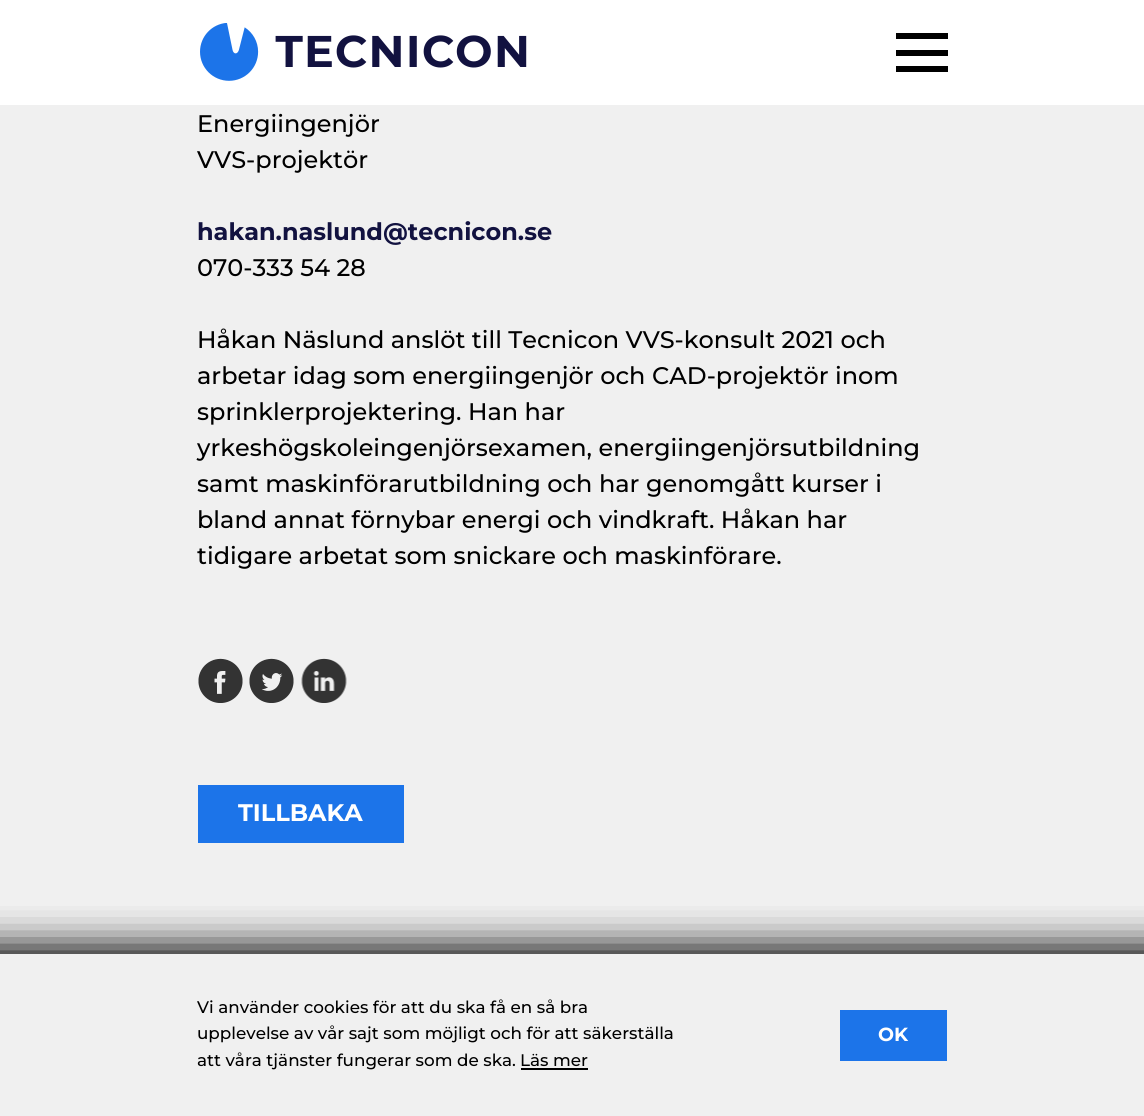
import math
import cairo

surface = cairo.ImageSurface(cairo.FORMAT_RGB24, 1144, 1116)
cr = cairo.Context(surface)
options = cairo.FontOptions()
options.set_hint_metrics(cairo.HINT_METRICS_OFF)
options.set_hint_style(cairo.HINT_STYLE_NONE)
cr.set_font_options(options)
cr.set_miter_limit(4)


def rgb(code):
    cr.set_source_rgb(*(v / 255 for v in bytes.fromhex(code[-6:])))


def rrect(x, y, w, h, r):
    cr.new_sub_path()
    for i, (u, v) in enumerate([(x + w - r, y + h - r), (x + r, y + h - r), (x + r, y + r), (x + w - r, y + r)]):
        cr.arc(u, v, r, i * math.pi / 2, (i + 1) * math.pi / 2)
    cr.close_path()


def soft_shadow(x, y, w, h, r, blur, alpha):
    cr.push_group_with_content(cairo.CONTENT_ALPHA)
    cr.set_operator(cairo.OPERATOR_SOURCE)
    for i in range(15, -16, -2):
        e = blur * i / 6
        if min(w, h) + 2 * e > 0:
            cr.set_source_rgba(0, 0, 0, alpha * math.erfc((i - 1) / 8.5) / 2)
            rrect(x - e, y - e, w + 2 * e, h + 2 * e, max(0, min(r + e + blur * .6, min(w, h) / 2 + e)))
            cr.fill()
    cr.mask(cr.pop_group())


def image(path, x, y, w, h):
    cr.save()
    cr.set_source_surface(cairo.ImageSurface.create_from_png(path), x, y)
    cr.rectangle(x, y, w, h)
    cr.fill()
    cr.restore()


rgb("#f0f0f0")
cr.paint()
rgb("#ffffff")
cr.rectangle(0, 0, 1144, 105)
cr.fill()
image("img/1.png", 200, 23, 327, 58)
for x, y, w, h, color in [
    (896, 33, 52, 6, "#000000"),
    (896, 50, 52, 6, "#000000"),
    (896, 66, 52, 6, "#000000"),
]:
    rgb(color)
    cr.rectangle(x, y, w, h)
    cr.fill()
image("img/2.png", 198, 658, 45, 45)
image("img/3.png", 249, 658, 45, 45)
image("img/4.png", 301, 658, 46, 45)
rgb("#1c74e9")
cr.rectangle(198, 785, 206, 58)
cr.fill()
cr.save()
cr.rectangle(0, 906, 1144, 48)
cr.clip()
rgb("#000000")
soft_shadow(-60, 947, 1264, 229, 0, 20, 1)
cr.restore()
rgb("#000000")
cr.rectangle(521, 1068, 67, 2)
cr.fill()
rgb("#1c74e9")
cr.rectangle(840, 1010, 107, 51)
cr.fill()
cr.select_font_face("Montserrat Medium")
cr.set_font_size(24)
rgb("#000000")
cr.move_to(197, 132)
cr.show_text("Energiingenjör")
cr.move_to(197, 168)
cr.show_text("VVS-projektör")
cr.select_font_face("Montserrat", cairo.FONT_SLANT_NORMAL, cairo.FONT_WEIGHT_BOLD)
rgb("#121240")
cr.move_to(197, 240)
cr.show_text("hakan.naslund@tecnicon.se")
cr.select_font_face("Montserrat Medium")
rgb("#000000")
for x, y, s in [
    (197, 276, "070-333 54 28"),
    (197, 348, "Håkan Näslund anslöt till Tecnicon VVS-konsult 2021 och"),
    (197, 384, "arbetar idag som energiingenjör och CAD-projektör inom"),
    (197, 420, "sprinklerprojektering. Han har"),
    (197, 456, "yrkeshögskoleingenjörsexamen, energiingenjörsutbildning"),
    (197, 492, "samt maskinförarutbildning och har genomgått kurser i"),
    (197, 528, "bland annat förnybar energi och vindkraft. Håkan har"),
    (197, 564, "tidigare arbetat som snickare och maskinförare."),
]:
    cr.move_to(x, y)
    cr.show_text(s)
cr.select_font_face("Montserrat", cairo.FONT_SLANT_NORMAL, cairo.FONT_WEIGHT_BOLD)
rgb("#ffffff")
cr.move_to(238, 821)
cr.show_text("TILLBAKA")
cr.select_font_face("Montserrat Medium")
cr.set_font_size(16.8)
rgb("#000000")
for x, y, s in [
    (197, 1013, "Vi använder cookies för att du ska få en så bra"),
    (197, 1039, "upplevelse av vår sajt som möjligt och för att säkerställa"),
    (197, 1066, "att våra tjänster fungerar som de ska."),
    (520, 1066, "Läs mer"),
]:
    cr.move_to(x, y)
    cr.show_text(s)
cr.select_font_face("Montserrat", cairo.FONT_SLANT_NORMAL, cairo.FONT_WEIGHT_BOLD)
cr.set_font_size(19)
rgb("#ffffff")
cr.move_to(878, 1041)
cr.show_text("OK")
surface.write_to_png("page.png")
